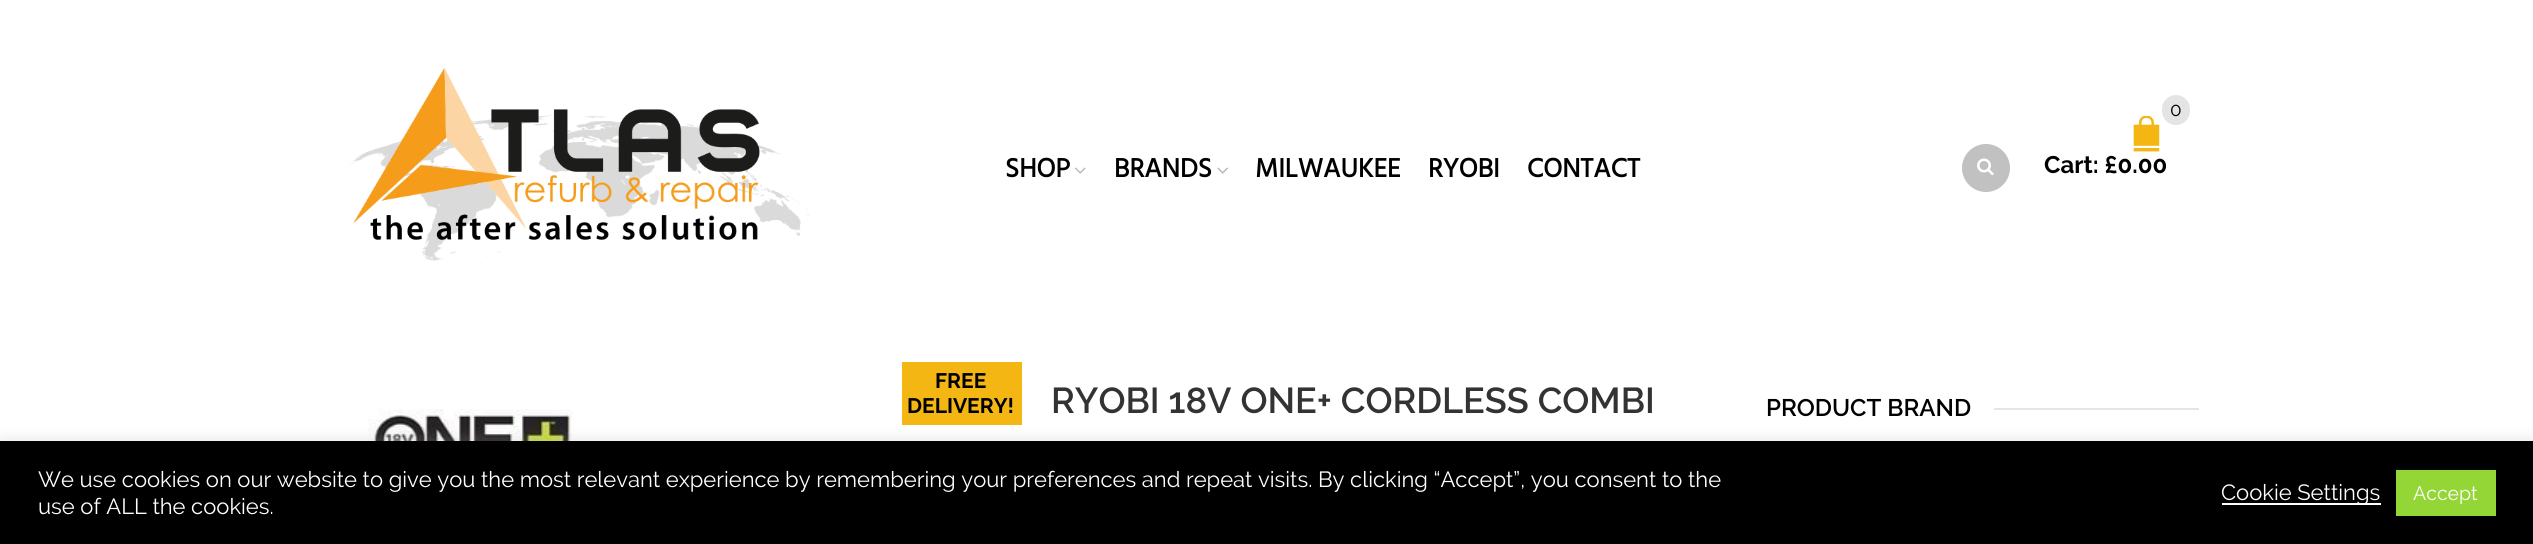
import math
import cairo

surface = cairo.ImageSurface(cairo.FORMAT_RGB24, 2533, 544)
cr = cairo.Context(surface)
options = cairo.FontOptions()
options.set_hint_metrics(cairo.HINT_METRICS_OFF)
options.set_hint_style(cairo.HINT_STYLE_NONE)
cr.set_font_options(options)
cr.set_miter_limit(4)


def rgb(code):
    cr.set_source_rgb(*(v / 255 for v in bytes.fromhex(code[-6:])))


def rrect(x, y, w, h, r):
    cr.new_sub_path()
    for i, (u, v) in enumerate([(x + w - r, y + h - r), (x + r, y + h - r), (x + r, y + r), (x + w - r, y + r)]):
        cr.arc(u, v, r, i * math.pi / 2, (i + 1) * math.pi / 2)
    cr.close_path()


def soft_shadow(x, y, w, h, r, blur, alpha):
    cr.push_group_with_content(cairo.CONTENT_ALPHA)
    cr.set_operator(cairo.OPERATOR_SOURCE)
    for i in range(15, -16, -2):
        e = blur * i / 6
        if min(w, h) + 2 * e > 0:
            cr.set_source_rgba(0, 0, 0, alpha * math.erfc((i - 1) / 8.5) / 2)
            rrect(x - e, y - e, w + 2 * e, h + 2 * e, max(0, min(r + e + blur * .6, min(w, h) / 2 + e)))
            cr.fill()
    cr.mask(cr.pop_group())


def image(path, x, y, w, h):
    cr.save()
    cr.set_source_surface(cairo.ImageSurface.create_from_png(path), x, y)
    cr.rectangle(x, y, w, h)
    cr.fill()
    cr.restore()


rgb("#ffffff")
cr.paint()
image("img/1.png", 346, 68, 464, 196)
image("img/2.png", 1074, 167, 12, 7)
image("img/3.png", 1217, 167, 11, 7)
rgb("#c1c1c1")
cr.arc(1986, 168, 24, 0, 2 * math.pi)
cr.fill()
image("img/4.png", 1977, 158, 17, 17)
rgb("#e4e4e4")
rrect(2162, 95, 28, 30, 14)
cr.fill()
image("img/5.png", 2133, 116, 27, 36)
rgb("#f3b613")
cr.rectangle(902, 362, 120, 63)
cr.fill()
image("img/6.png", 368, 409, 523, 32)
rgb("#e5e5e5")
cr.rectangle(1994, 408, 205, 2)
cr.fill()
rgb("#acabab")
soft_shadow(0, 440, 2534, 103, 0, 7.5, 0.3)
for x, y, w, h, color in [
    (0, 441, 2533, 103, "#000000"),
    (2222, 503, 159, 2, "#ffffff"),
    (2396, 470, 100, 46, "#93d635"),
]:
    rgb(color)
    cr.rectangle(x, y, w, h)
    cr.fill()
cr.select_font_face("Hind Siliguri", cairo.FONT_SLANT_NORMAL, cairo.FONT_WEIGHT_BOLD)
cr.set_font_size(27)
rgb("#000000")
for x, y, s in [
    (1005, 177, "SHOP"),
    (1114, 177, "BRANDS"),
    (1255, 177, "MILWAUKEE"),
    (1428, 177, "RYOBI"),
    (1527, 177, "CONTACT"),
]:
    cr.move_to(x, y)
    cr.show_text(s)
cr.select_font_face("Raleway")
cr.set_font_size(19)
cr.move_to(2170, 116)
cr.show_text("0")
cr.select_font_face("Raleway", cairo.FONT_SLANT_NORMAL, cairo.FONT_WEIGHT_BOLD)
cr.set_font_size(24)
cr.move_to(2044, 173)
cr.show_text("Cart: £0.00")
cr.set_font_size(21)
cr.move_to(935, 388)
cr.show_text("FREE")
cr.move_to(907, 413)
cr.show_text("DELIVERY!")
cr.select_font_face("Raleway SemiBold")
cr.set_font_size(36)
rgb("#333333")
cr.move_to(1051, 413)
cr.show_text("RYOBI 18V ONE+ CORDLESS COMBI")
cr.set_font_size(24)
rgb("#000000")
cr.move_to(1766, 416)
cr.show_text("PRODUCT BRAND")
cr.select_font_face("Raleway")
cr.set_font_size(22)
rgb("#ffffff")
for x, y, s in [
    (38, 487, "We use cookies on our website to give you the most relevant experience by remembering your preferences and repeat visits. By clicking “Accept”, you consent to the"),
    (38, 514, "use of ALL the cookies."),
    (2221, 500, "Cookie Settings"),
]:
    cr.move_to(x, y)
    cr.show_text(s)
cr.set_font_size(19.5)
cr.move_to(2413, 500)
cr.show_text("Accept")
surface.write_to_png("page.png")
